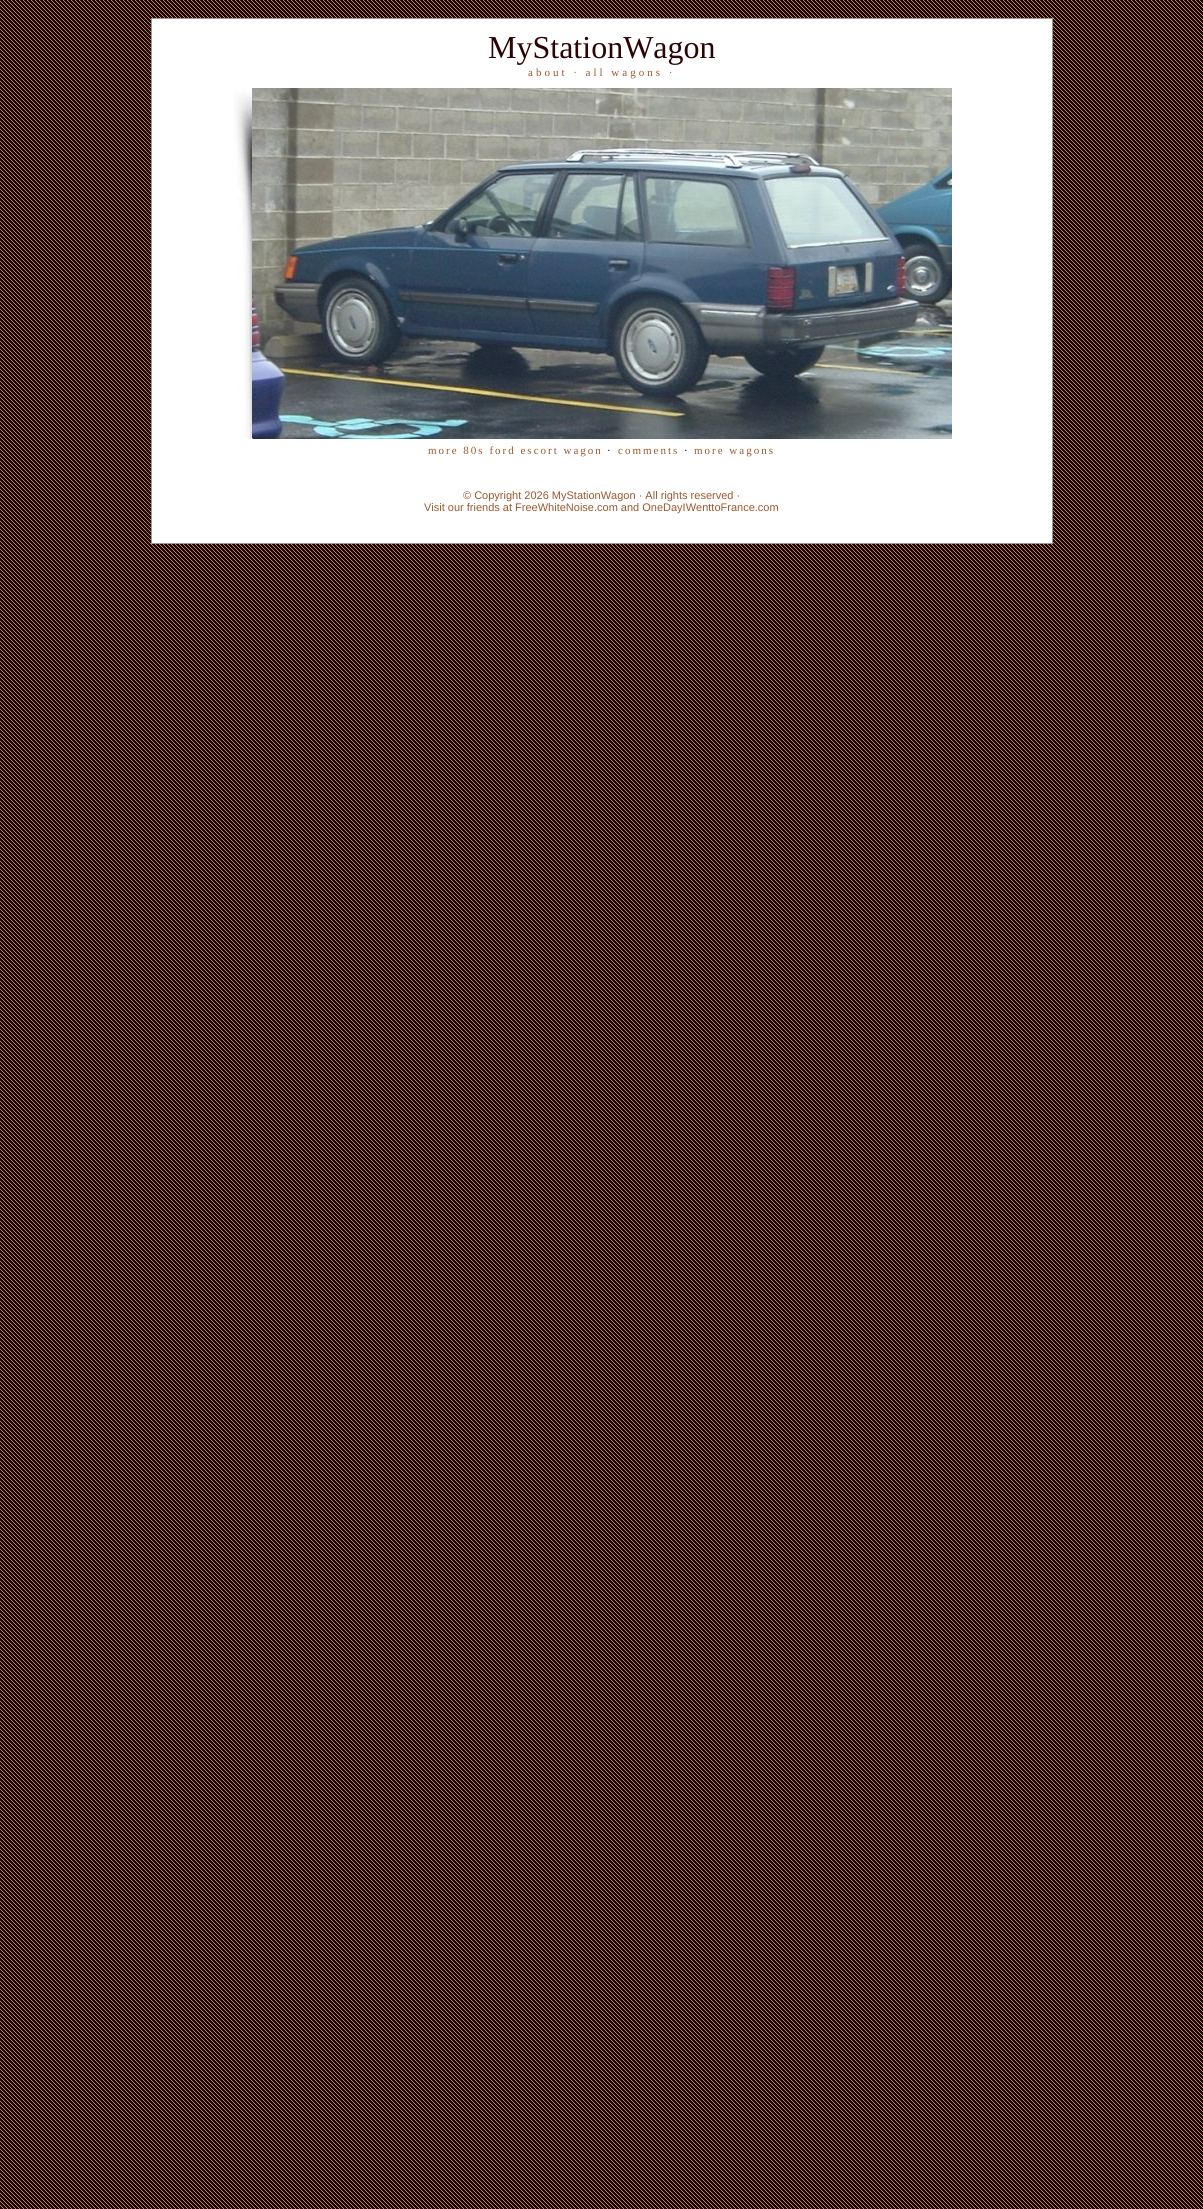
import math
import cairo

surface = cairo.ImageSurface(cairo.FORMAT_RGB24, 1203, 2209)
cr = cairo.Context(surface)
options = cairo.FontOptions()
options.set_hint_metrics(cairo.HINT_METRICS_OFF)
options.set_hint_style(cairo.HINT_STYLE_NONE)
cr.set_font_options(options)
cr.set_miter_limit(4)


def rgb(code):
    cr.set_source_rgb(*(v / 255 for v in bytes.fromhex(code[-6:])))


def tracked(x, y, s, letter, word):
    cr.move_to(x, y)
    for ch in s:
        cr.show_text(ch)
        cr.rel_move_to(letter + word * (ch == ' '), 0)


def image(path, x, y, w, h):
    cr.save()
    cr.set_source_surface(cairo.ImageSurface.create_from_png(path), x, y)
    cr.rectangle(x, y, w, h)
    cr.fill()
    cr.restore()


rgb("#ffffff")
cr.paint()
image("img/1.png", 0, 0, 1203, 2209)
rgb("#ffffff")
cr.rectangle(151.5, 18.5, 901, 525)
cr.fill_preserve()
rgb("#999999")
cr.set_line_width(1)
cr.stroke()
image("img/2.png", 234, 88, 718, 351)
cr.select_font_face("Liberation Serif")
cr.set_font_size(32)
rgb("#2c0405")
cr.move_to(488, 58)
cr.show_text("MyStationWagon")
cr.set_font_size(11)
rgb("#9a592f")
tracked(528, 76, "about · all wagons ·", 3, 0)
tracked(428, 454, "more 80s ford escort wagon", 2, 0)
rgb("#000000")
tracked(607, 454, "·", 2, 0)
rgb("#9a592f")
tracked(618, 454, "comments", 2, 0)
rgb("#000000")
tracked(684, 454, "·", 2, 0)
rgb("#9a592f")
tracked(694, 454, "more wagons", 2, 0)
cr.select_font_face("Liberation Sans")
cr.move_to(463, 499)
cr.show_text("© Copyright 2026 MyStationWagon · All rights reserved ·")
cr.move_to(424, 511)
cr.show_text("Visit our friends at FreeWhiteNoise.com and OneDayIWenttoFrance.com")
surface.write_to_png("page.png")
